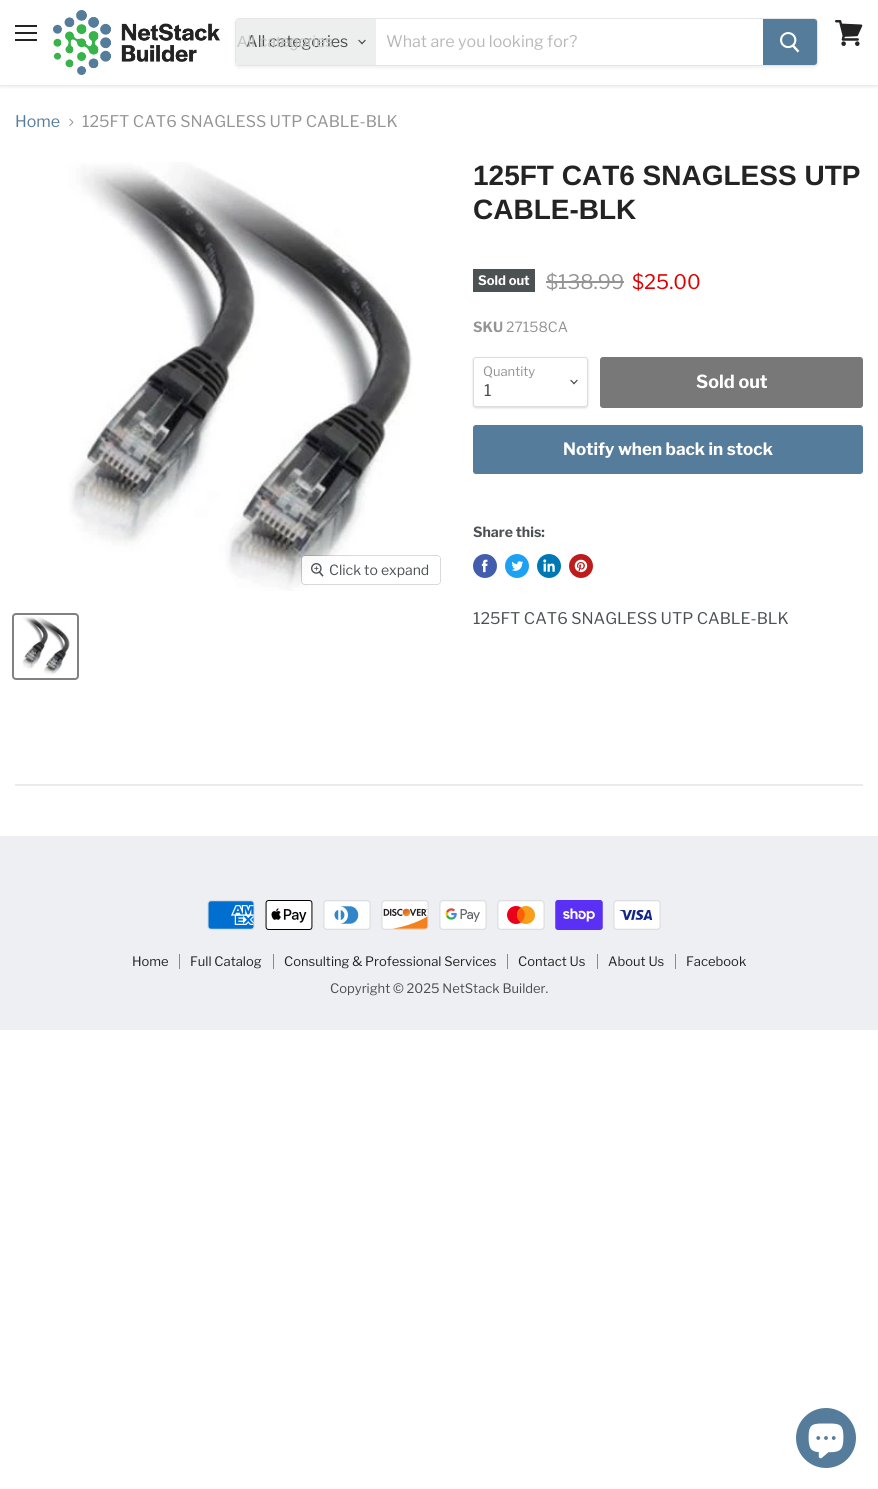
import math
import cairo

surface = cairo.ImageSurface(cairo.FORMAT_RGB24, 878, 1489)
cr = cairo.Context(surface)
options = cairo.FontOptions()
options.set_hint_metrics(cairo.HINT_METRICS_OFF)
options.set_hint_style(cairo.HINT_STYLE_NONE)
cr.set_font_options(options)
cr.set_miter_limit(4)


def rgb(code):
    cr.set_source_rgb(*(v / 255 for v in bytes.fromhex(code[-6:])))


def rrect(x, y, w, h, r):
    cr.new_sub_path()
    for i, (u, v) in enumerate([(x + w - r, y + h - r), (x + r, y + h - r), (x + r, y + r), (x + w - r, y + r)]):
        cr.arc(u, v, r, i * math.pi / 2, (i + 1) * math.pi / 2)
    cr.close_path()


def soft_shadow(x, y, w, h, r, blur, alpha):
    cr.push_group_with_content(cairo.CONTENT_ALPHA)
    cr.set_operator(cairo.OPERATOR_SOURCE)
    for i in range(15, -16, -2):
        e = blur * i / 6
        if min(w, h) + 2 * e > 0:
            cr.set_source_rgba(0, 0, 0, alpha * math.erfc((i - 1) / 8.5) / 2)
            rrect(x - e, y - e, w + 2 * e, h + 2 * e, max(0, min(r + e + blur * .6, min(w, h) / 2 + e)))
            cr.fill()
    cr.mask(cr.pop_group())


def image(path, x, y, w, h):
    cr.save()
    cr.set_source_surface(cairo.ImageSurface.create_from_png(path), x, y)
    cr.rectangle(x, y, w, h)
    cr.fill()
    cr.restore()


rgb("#ffffff")
cr.paint()
cr.save()
cr.rectangle(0, 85, 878, 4)
cr.clip()
rgb("#808080")
soft_shadow(0, 1, 878, 85, 0, 2, 0.25)
cr.restore()
for x, y, w, h, color in [
    (15, 25, 22, 2, "#232323"),
    (15, 32, 22, 2, "#232323"),
    (15, 39, 22, 2, "#232323"),
]:
    rgb(color)
    cr.rectangle(x, y, w, h)
    cr.fill()
image("img/1.png", 835, 20, 28, 26)
image("img/2.png", 53, 10, 167, 65)
cr.save()
cr.set_fill_rule(cairo.FILL_RULE_EVEN_ODD)
cr.new_path()
cr.move_to(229, 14)
cr.line_to(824, 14)
cr.line_to(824, 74)
cr.line_to(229, 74)
cr.close_path()
cr.move_to(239, 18)
cr.line_to(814, 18)
cr.curve_to(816, 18, 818, 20, 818, 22)
cr.line_to(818, 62)
cr.curve_to(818, 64, 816, 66, 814, 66)
cr.line_to(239, 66)
cr.curve_to(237, 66, 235, 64, 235, 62)
cr.line_to(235, 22)
cr.curve_to(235, 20, 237, 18, 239, 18)
cr.close_path()
cr.clip()
rgb("#808080")
soft_shadow(235, 20, 583, 48, 4, 1.5, 0.11)
cr.restore()
rrect(235.5, 18.5, 582, 47, 3.5)
cr.set_source_rgba(0.502, 0.502, 0.502, 0.2)
cr.set_line_width(1)
cr.stroke()
rgb("#edeeee")
cr.new_path()
cr.move_to(239, 19)
cr.line_to(376, 19)
cr.line_to(376, 65)
cr.line_to(239, 65)
cr.curve_to(237.5, 65, 236, 63.5, 236, 62)
cr.line_to(236, 22)
cr.curve_to(236, 20.5, 237.5, 19, 239, 19)
cr.close_path()
cr.fill()
image("img/3.png", 358, 39, 8, 6)
rgb("#557d9b")
cr.new_path()
cr.move_to(763.5, 19.5)
cr.line_to(814, 19.5)
cr.curve_to(815.5, 19.5, 816.5, 20.5, 816.5, 22)
cr.line_to(816.5, 62)
cr.curve_to(816.5, 63.5, 815.5, 64.5, 814, 64.5)
cr.line_to(763.5, 64.5)
cr.close_path()
cr.fill_preserve()
cr.stroke()
image("img/4.png", 780, 32, 20, 21)
image("img/5.png", 69, 118, 5, 8)
image("img/6.png", 68, 162, 345, 429)
rrect(301.5, 555.5, 139, 29, 3.5)
cr.set_source_rgba(0, 0, 0, 0.15)
cr.stroke()
cr.set_source_rgba(1, 1, 1, 0.9)
rrect(302, 556, 138, 28, 3)
cr.fill()
image("img/7.png", 311, 563, 13, 14)
rrect(13, 614, 65, 65, 3)
rgb("#818181")
cr.set_line_width(2)
cr.stroke()
image("img/8.png", 22, 616, 48, 59)
rgb("#4c5154")
cr.rectangle(473, 269, 62, 23)
cr.fill()
rgb("#949494")
cr.rectangle(546, 281, 78, 2)
cr.fill()
rgb("#000000")
soft_shadow(473, 358, 115, 50, 3, 1, 0.15)
rgb("#ffffff")
rrect(473.5, 357.5, 114, 49, 2.5)
cr.fill_preserve()
rgb("#dddddd")
cr.set_line_width(1)
cr.stroke()
image("img/9.png", 570, 379, 8, 6)
rgb("#787878")
rrect(600.5, 357.5, 262, 50, 2.5)
cr.fill_preserve()
cr.stroke()
rgb("#557d9b")
rrect(473.5, 425.5, 389, 48, 2.5)
cr.fill_preserve()
cr.stroke()
rgb("#425dab")
cr.arc(485, 566, 12, 0, 2 * math.pi)
cr.fill()
image("img/10.png", 481, 559, 7, 14)
rgb("#1da1f2")
cr.arc(517, 566, 12, 0, 2 * math.pi)
cr.fill()
image("img/11.png", 511, 561, 13, 10)
rgb("#0077b5")
cr.arc(549, 566, 12, 0, 2 * math.pi)
cr.fill()
image("img/12.png", 543, 559, 12, 13)
rgb("#bd1c1c")
cr.arc(581, 566, 12, 0, 2 * math.pi)
cr.fill()
image("img/13.png", 574, 559, 14, 14)
rgb("#ebebeb")
cr.rectangle(15, 784, 848, 2)
cr.fill()
rgb("#edeff3")
cr.rectangle(0, 836, 878, 194)
cr.fill()
image("img/14.png", 207, 900, 48, 30)
image("img/15.png", 265, 900, 48, 30)
image("img/16.png", 323, 900, 48, 30)
image("img/17.png", 381, 900, 48, 30)
image("img/18.png", 439, 900, 48, 30)
image("img/19.png", 497, 900, 48, 30)
image("img/20.png", 555, 900, 48, 30)
image("img/21.png", 613, 900, 48, 30)
for x, y, w, h, color in [
    (179, 954, 1, 15, "#88898b"),
    (273, 954, 1, 15, "#88898b"),
    (507, 954, 1, 15, "#88898b"),
    (597, 954, 1, 15, "#88898b"),
    (675, 954, 1, 15, "#88898b"),
]:
    rgb(color)
    cr.rectangle(x, y, w, h)
    cr.fill()
rgb("#557d9b")
cr.arc(826, 1438, 30, 0, 2 * math.pi)
cr.fill()
image("img/22.png", 808, 1423, 36, 36)
cr.select_font_face("Libre Franklin")
cr.set_font_size(16)
rgb("#4b4c4d")
cr.move_to(246, 47)
cr.show_text("All categories")
cr.select_font_face("Liberation Sans")
rgb("#c4c5c5")
cr.move_to(237, 47)
cr.show_text("All categories")
cr.select_font_face("Libre Franklin")
rgb("#b8b8b8")
cr.move_to(386, 47)
cr.show_text("What are you looking for?")
rgb("#557d9b")
cr.move_to(15, 127)
cr.show_text("Home")
rgb("#949494")
cr.move_to(82, 127)
cr.show_text("125FT CAT6 SNAGLESS UTP CABLE-BLK")
cr.set_font_size(14)
rgb("#4c5154")
cr.move_to(329, 575)
cr.show_text("Click to expand")
cr.select_font_face("Arimo", cairo.FONT_SLANT_NORMAL, cairo.FONT_WEIGHT_BOLD)
cr.set_font_size(28)
rgb("#232323")
cr.move_to(473, 185)
cr.show_text("125FT CAT6 SNAGLESS UTP")
cr.move_to(473, 219)
cr.show_text("CABLE-BLK")
cr.select_font_face("Libre Franklin", cairo.FONT_SLANT_NORMAL, cairo.FONT_WEIGHT_BOLD)
cr.set_font_size(13)
rgb("#ffffff")
cr.move_to(478, 285)
cr.show_text("Sold out")
cr.select_font_face("Libre Franklin")
cr.set_font_size(20)
rgb("#949494")
cr.move_to(546, 289)
cr.show_text("$138.99")
rgb("#de0101")
cr.move_to(632, 289)
cr.show_text("$25.00")
cr.select_font_face("Libre Franklin", cairo.FONT_SLANT_NORMAL, cairo.FONT_WEIGHT_BOLD)
cr.set_font_size(14)
rgb("#949494")
cr.move_to(473, 332)
cr.show_text("SKU")
cr.select_font_face("Libre Franklin")
cr.move_to(506, 332)
cr.show_text("27158CA")
cr.set_font_size(13)
cr.move_to(483, 376)
cr.show_text("Quantity")
cr.set_font_size(16)
rgb("#4b4c4d")
cr.move_to(484, 396)
cr.show_text("1")
cr.select_font_face("Libre Franklin", cairo.FONT_SLANT_NORMAL, cairo.FONT_WEIGHT_BOLD)
cr.set_font_size(18)
rgb("#ffffff")
cr.move_to(696, 388)
cr.show_text("Sold out")
cr.set_font_size(17)
cr.move_to(563, 455)
cr.show_text("Notify when back in stock")
cr.set_font_size(14)
rgb("#4c5154")
cr.move_to(473, 537)
cr.show_text("Share this:")
cr.select_font_face("Libre Franklin")
cr.set_font_size(16)
cr.move_to(473, 624)
cr.show_text("125FT CAT6 SNAGLESS UTP CABLE-BLK")
cr.set_font_size(13)
rgb("#232323")
for x, y, s in [
    (132, 966, "Home"),
    (190, 966, "Full Catalog"),
    (284, 966, "Consulting & Professional Services"),
    (518, 966, "Contact Us"),
    (608, 966, "About Us"),
    (686, 966, "Facebook"),
]:
    cr.move_to(x, y)
    cr.show_text(s)
rgb("#4b4c4d")
cr.move_to(330, 993)
cr.show_text("Copyright © 2025 NetStack Builder.")
surface.write_to_png("page.png")
